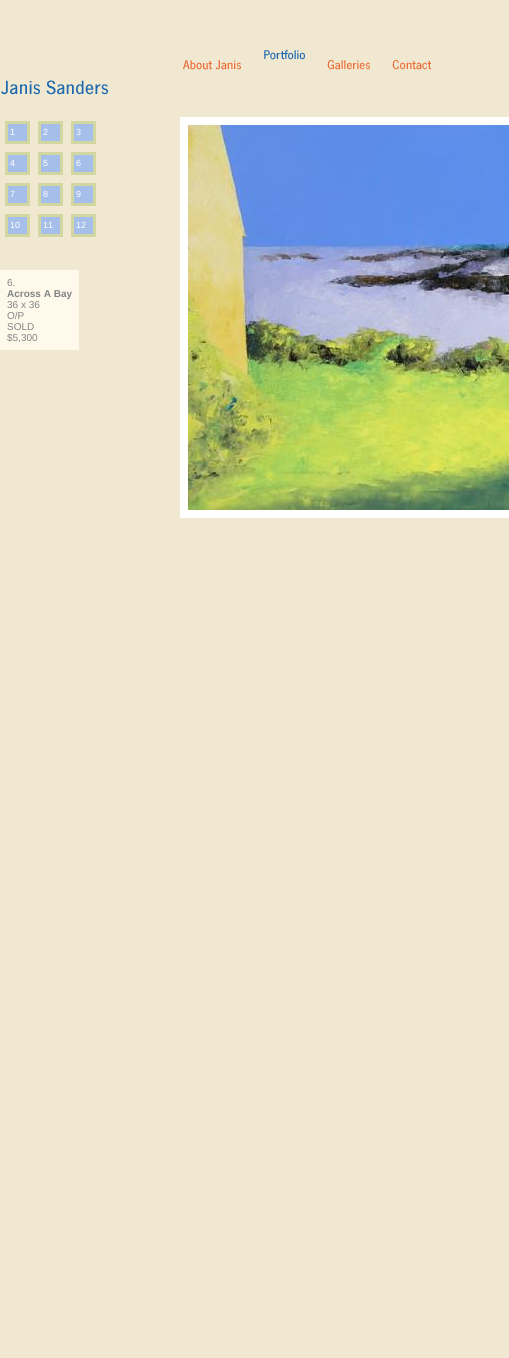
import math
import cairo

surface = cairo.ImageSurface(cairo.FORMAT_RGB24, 509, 1358)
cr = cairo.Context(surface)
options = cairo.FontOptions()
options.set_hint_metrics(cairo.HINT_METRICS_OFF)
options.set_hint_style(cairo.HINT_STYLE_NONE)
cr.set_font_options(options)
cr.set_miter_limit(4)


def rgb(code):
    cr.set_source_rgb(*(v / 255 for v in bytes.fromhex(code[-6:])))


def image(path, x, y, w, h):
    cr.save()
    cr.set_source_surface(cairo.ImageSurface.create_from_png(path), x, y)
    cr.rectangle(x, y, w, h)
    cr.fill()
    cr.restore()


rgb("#f1e8d1")
cr.paint()
image("img/1.png", 264, 50, 41, 10)
image("img/2.png", 183, 60, 58, 10)
image("img/3.png", 327, 60, 43, 10)
image("img/4.png", 392, 60, 39, 10)
image("img/5.png", 1, 80, 107, 15)
rgb("#a5beea")
cr.rectangle(6.5, 122.5, 22, 20)
cr.fill_preserve()
rgb("#d2d6a1")
cr.set_line_width(3)
cr.stroke()
rgb("#a5beea")
cr.rectangle(39.5, 122.5, 22, 20)
cr.fill_preserve()
rgb("#d2d6a1")
cr.stroke()
rgb("#a5beea")
cr.rectangle(72.5, 122.5, 22, 20)
cr.fill_preserve()
rgb("#d2d6a1")
cr.stroke()
rgb("#a5beea")
cr.rectangle(6.5, 153.5, 22, 20)
cr.fill_preserve()
rgb("#d2d6a1")
cr.stroke()
rgb("#a5beea")
cr.rectangle(39.5, 153.5, 22, 20)
cr.fill_preserve()
rgb("#d2d6a1")
cr.stroke()
rgb("#a5beea")
cr.rectangle(72.5, 153.5, 22, 20)
cr.fill_preserve()
rgb("#d2d6a1")
cr.stroke()
rgb("#a5beea")
cr.rectangle(6.5, 184.5, 22, 20)
cr.fill_preserve()
rgb("#d2d6a1")
cr.stroke()
rgb("#a5beea")
cr.rectangle(39.5, 184.5, 22, 20)
cr.fill_preserve()
rgb("#d2d6a1")
cr.stroke()
rgb("#a5beea")
cr.rectangle(72.5, 184.5, 22, 20)
cr.fill_preserve()
rgb("#d2d6a1")
cr.stroke()
rgb("#a5beea")
cr.rectangle(6.5, 215.5, 22, 20)
cr.fill_preserve()
rgb("#d2d6a1")
cr.stroke()
rgb("#a5beea")
cr.rectangle(39.5, 215.5, 22, 20)
cr.fill_preserve()
rgb("#d2d6a1")
cr.stroke()
rgb("#a5beea")
cr.rectangle(72.5, 215.5, 22, 20)
cr.fill_preserve()
rgb("#d2d6a1")
cr.stroke()
rgb("#fff9eb")
cr.rectangle(0, 270, 79, 80)
cr.fill()
rgb("#ffffff")
cr.rectangle(180, 117, 329, 401)
cr.fill()
image("img/6.png", 188, 125, 321, 385)
cr.select_font_face("Liberation Sans")
cr.set_font_size(9)
for x, y, s in [
    (10, 135, "1"),
    (43, 135, "2"),
    (76, 135, "3"),
    (10, 166, "4"),
    (43, 166, "5"),
    (76, 166, "6"),
    (10, 197, "7"),
    (43, 197, "8"),
    (76, 197, "9"),
    (10, 228, "10"),
    (43, 228, "11"),
    (76, 228, "12"),
]:
    cr.move_to(x, y)
    cr.show_text(s)
cr.set_font_size(10)
rgb("#818384")
cr.move_to(7, 286)
cr.show_text("6.")
cr.select_font_face("Liberation Sans", cairo.FONT_SLANT_NORMAL, cairo.FONT_WEIGHT_BOLD)
cr.move_to(7, 297)
cr.show_text("Across A Bay")
cr.select_font_face("Liberation Sans")
for x, y, s in [
    (7, 308, "36 x 36"),
    (7, 319, "O/P"),
    (7, 330, "SOLD"),
    (7, 341, "$5,300"),
]:
    cr.move_to(x, y)
    cr.show_text(s)
surface.write_to_png("page.png")
